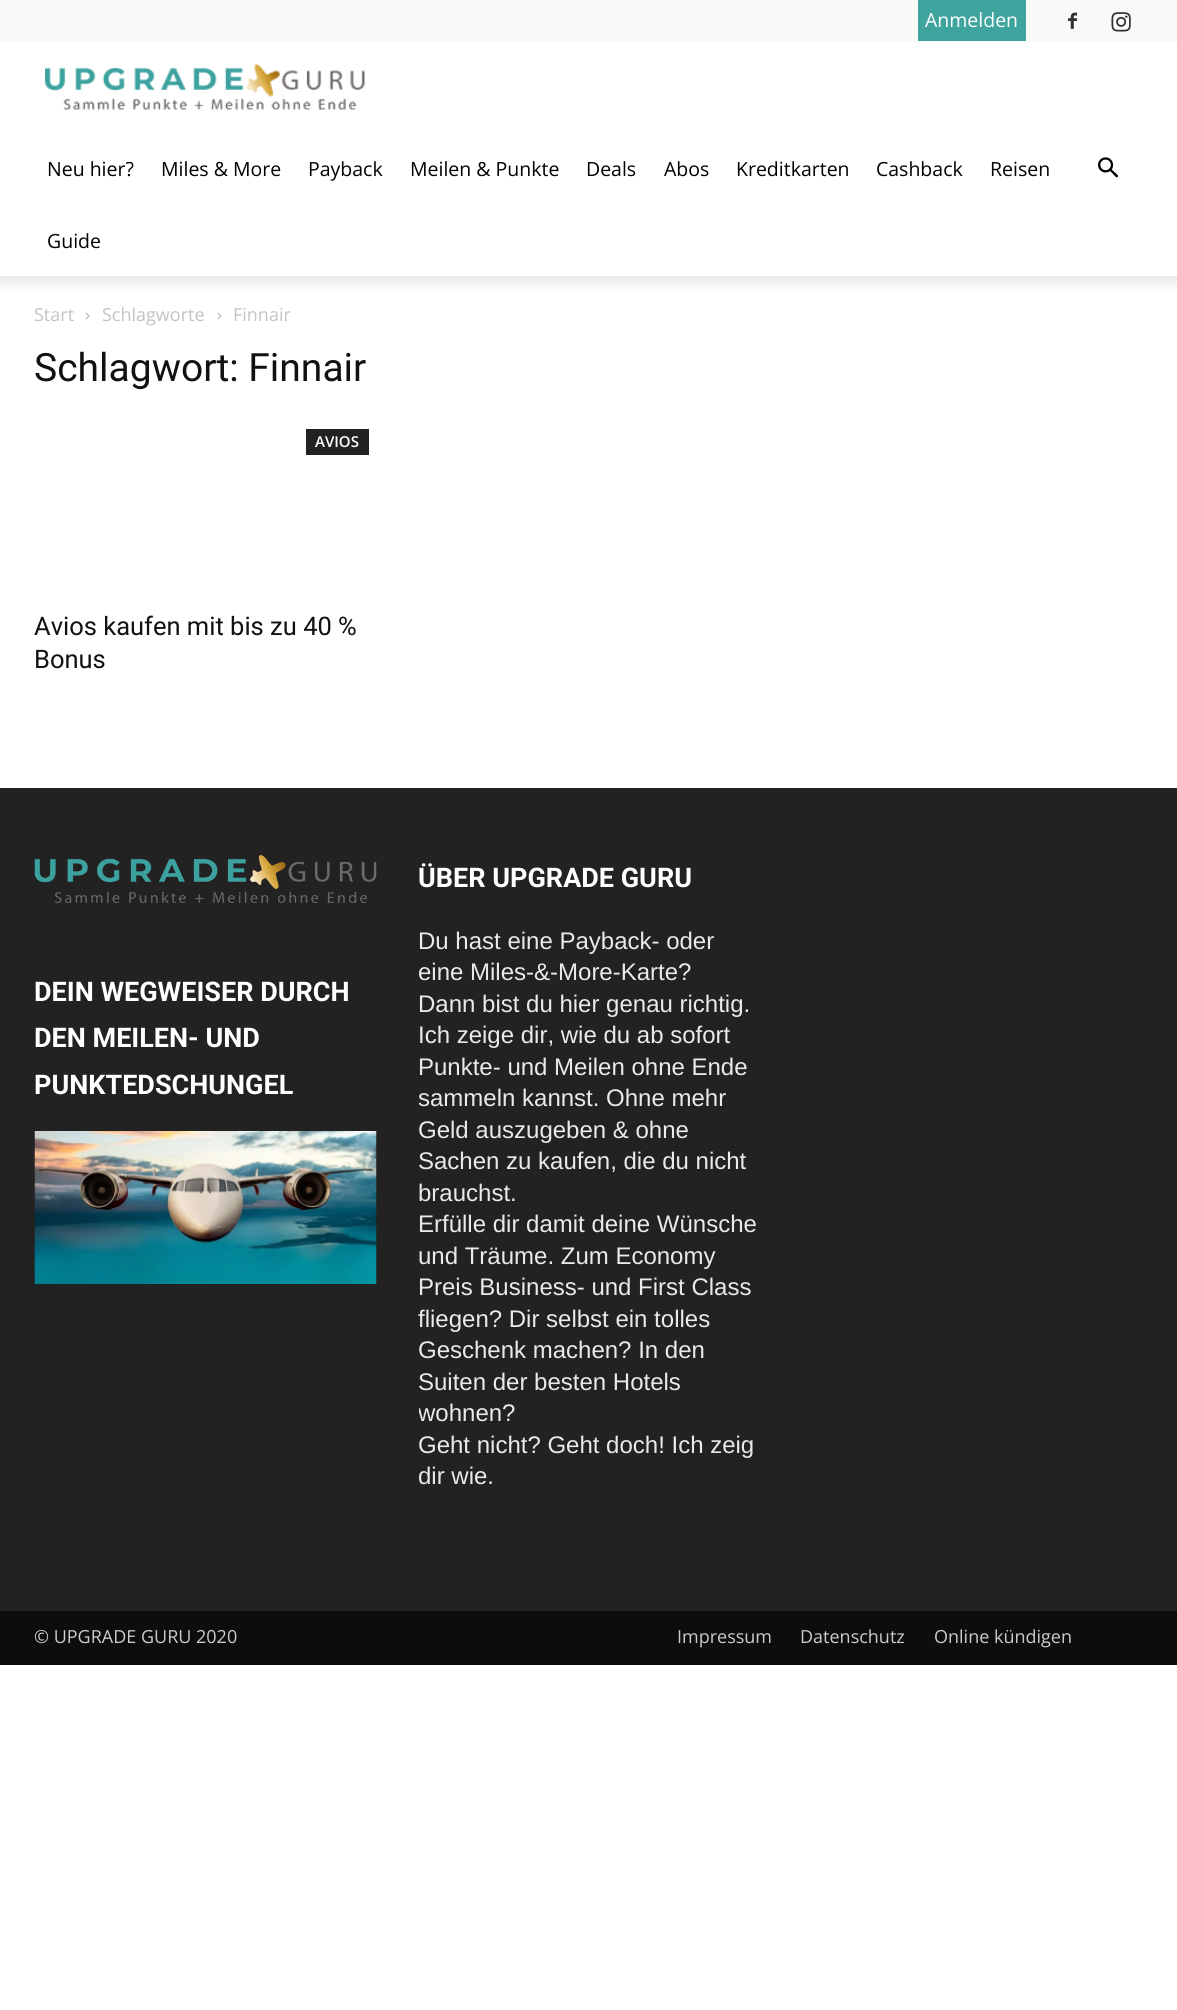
import math
import cairo

surface = cairo.ImageSurface(cairo.FORMAT_RGB24, 1177, 2010)
cr = cairo.Context(surface)
options = cairo.FontOptions()
options.set_hint_metrics(cairo.HINT_METRICS_OFF)
options.set_hint_style(cairo.HINT_STYLE_NONE)
cr.set_font_options(options)
cr.set_miter_limit(4)


def rgb(code):
    cr.set_source_rgb(*(v / 255 for v in bytes.fromhex(code[-6:])))


def image(path, x, y, w, h):
    cr.save()
    cr.set_source_surface(cairo.ImageSurface.create_from_png(path), x, y)
    cr.rectangle(x, y, w, h)
    cr.fill()
    cr.restore()


rgb("#ffffff")
cr.paint()
rgb("#f9f9f9")
cr.rectangle(0, 0, 1177, 42)
cr.fill()
rgb("#3fa39e")
cr.rectangle(918, 0, 108, 41)
cr.fill()
image("img/1.png", 1068, 12, 9, 17)
image("img/2.png", 1111, 12, 20, 20)
image("img/3.png", 45, 64, 320, 46)
image("img/4.png", 1098, 157, 20, 21)
image("img/5.png", 0, 276, 1177, 13)
image("img/6.png", 85, 312, 5, 8)
image("img/6.png", 217, 312, 5, 8)
rgb("#222222")
cr.rectangle(306, 429, 63, 26)
cr.fill()
cr.rectangle(0, 788, 1177, 823)
cr.fill()
image("img/7.png", 34, 855, 343, 48)
image("img/8.png", 34, 1131, 343, 153)
rgb("#0d0d0d")
cr.rectangle(0, 1611, 1177, 54)
cr.fill()
cr.select_font_face("Open Sans")
cr.set_font_size(19.5)
rgb("#ffffff")
cr.move_to(925, 27)
cr.show_text("Anmelden")
rgb("#000000")
for x, y, s in [
    (47, 176, "Neu hier?"),
    (161, 176, "Miles & More"),
    (308, 176, "Payback"),
    (410, 176, "Meilen & Punkte"),
    (586, 176, "Deals"),
    (664, 176, "Abos"),
    (736, 176, "Kreditkarten"),
    (876, 176, "Cashback"),
    (990, 176, "Reisen"),
    (47, 248, "Guide"),
]:
    cr.move_to(x, y)
    cr.show_text(s)
cr.set_font_size(18)
rgb("#c3c3c3")
for x, y, s in [
    (34, 321, "Start"),
    (102, 321, "Schlagworte"),
    (233, 321, "Finnair"),
]:
    cr.move_to(x, y)
    cr.show_text(s)
cr.select_font_face("Roboto")
cr.set_font_size(39)
rgb("#111111")
cr.move_to(34, 381)
cr.show_text("Schlagwort: Finnair")
cr.select_font_face("Open Sans SemiBold")
cr.set_font_size(15)
rgb("#ffffff")
cr.move_to(315, 447)
cr.show_text("AVIOS")
cr.select_font_face("Roboto")
cr.set_font_size(25.5)
rgb("#111111")
cr.move_to(34, 635)
cr.show_text("Avios kaufen mit bis zu 40 %")
cr.move_to(34, 668)
cr.show_text("Bonus")
cr.select_font_face("Roboto", cairo.FONT_SLANT_NORMAL, cairo.FONT_WEIGHT_BOLD)
cr.set_font_size(27)
rgb("#ffffff")
for x, y, s in [
    (34, 1001, "DEIN WEGWEISER DURCH"),
    (34, 1047, "DEN MEILEN- UND"),
    (34, 1094, "PUNKTEDSCHUNGEL"),
    (418, 887, "ÜBER UPGRADE GURU"),
]:
    cr.move_to(x, y)
    cr.show_text(s)
cr.select_font_face("Liberation Sans")
cr.set_font_size(24)
rgb("#eaeaea")
cr.move_to(418, 949)
cr.show_text("Du hast eine Payback- oder")
cr.save()
cr.rectangle(419, 855, 342, 669)
cr.clip()
cr.move_to(418, 980)
cr.show_text("eine Miles-&-More-Karte?")
cr.restore()
for x, y, s in [
    (418, 1012, "Dann bist du hier genau richtig."),
    (418, 1043, "Ich zeige dir, wie du ab sofort"),
    (418, 1075, "Punkte- und Meilen ohne Ende"),
    (418, 1106, "sammeln kannst. Ohne mehr"),
    (418, 1138, "Geld auszugeben & ohne"),
    (418, 1169, "Sachen zu kaufen, die du nicht"),
    (418, 1201, "brauchst."),
    (418, 1232, "Erfülle dir damit deine Wünsche"),
    (418, 1264, "und Träume. Zum Economy"),
    (418, 1295, "Preis Business- und First Class"),
    (418, 1327, "fliegen? Dir selbst ein tolles"),
    (418, 1358, "Geschenk machen? In den"),
    (418, 1390, "Suiten der besten Hotels"),
]:
    cr.move_to(x, y)
    cr.show_text(s)
cr.save()
cr.rectangle(419, 855, 342, 669)
cr.clip()
cr.move_to(418, 1421)
cr.show_text("wohnen?")
cr.restore()
cr.move_to(418, 1453)
cr.show_text("Geht nicht? Geht doch! Ich zeig")
cr.save()
cr.rectangle(419, 855, 342, 669)
cr.clip()
cr.move_to(418, 1484)
cr.show_text("dir wie.")
cr.restore()
cr.select_font_face("Open Sans")
cr.set_font_size(18)
rgb("#cccccc")
for x, y, s in [
    (34, 1643, "© UPGRADE GURU 2020"),
    (677, 1643, "Impressum"),
    (800, 1643, "Datenschutz"),
    (934, 1643, "Online kündigen"),
]:
    cr.move_to(x, y)
    cr.show_text(s)
surface.write_to_png("page.png")
